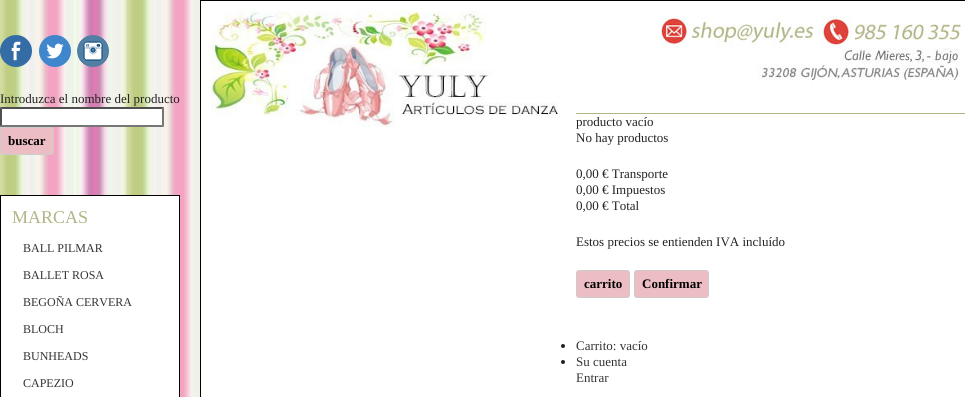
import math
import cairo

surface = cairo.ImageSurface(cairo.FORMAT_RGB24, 965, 397)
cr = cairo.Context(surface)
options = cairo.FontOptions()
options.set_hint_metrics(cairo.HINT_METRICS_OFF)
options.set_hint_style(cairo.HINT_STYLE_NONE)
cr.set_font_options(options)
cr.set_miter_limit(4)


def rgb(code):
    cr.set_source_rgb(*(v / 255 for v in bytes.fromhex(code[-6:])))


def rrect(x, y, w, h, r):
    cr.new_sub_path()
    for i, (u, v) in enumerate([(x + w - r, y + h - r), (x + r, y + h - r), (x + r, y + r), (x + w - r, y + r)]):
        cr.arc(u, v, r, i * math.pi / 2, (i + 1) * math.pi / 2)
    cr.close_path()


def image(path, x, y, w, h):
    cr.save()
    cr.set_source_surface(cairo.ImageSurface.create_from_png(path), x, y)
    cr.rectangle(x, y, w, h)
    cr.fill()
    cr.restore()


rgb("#ffffff")
cr.paint()
image("img/1.png", 0, 0, 200, 397)
image("img/2.png", 0, 35, 32, 32)
image("img/3.png", 39, 35, 32, 32)
image("img/4.png", 77, 35, 32, 32)
rgb("#ffffff")
cr.rectangle(0, 107, 164, 20)
cr.fill()
rgb("#4f4f4f")
cr.new_path()
cr.move_to(0, 107)
cr.line_to(164, 107)
cr.line_to(162, 109)
cr.line_to(2, 109)
cr.close_path()
cr.fill()
rgb("#767676")
cr.new_path()
cr.move_to(164, 107)
cr.line_to(164, 127)
cr.line_to(162, 125)
cr.line_to(162, 109)
cr.close_path()
cr.fill()
cr.new_path()
cr.move_to(164, 127)
cr.line_to(0, 127)
cr.line_to(2, 125)
cr.line_to(162, 125)
cr.close_path()
cr.fill()
rgb("#4f4f4f")
cr.new_path()
cr.move_to(0, 127)
cr.line_to(0, 107)
cr.line_to(2, 109)
cr.line_to(2, 125)
cr.close_path()
cr.fill()
rgb("#ecbdc3")
rrect(0.5, 127.5, 53, 27, 2.5)
cr.fill_preserve()
rgb("#cccccc")
cr.set_line_width(1)
cr.stroke()
rgb("#ffffff")
cr.rectangle(0.5, 195.5, 179, 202)
cr.fill_preserve()
rgb("#000000")
cr.stroke()
cr.rectangle(200.5, 0.5, 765, 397)
cr.stroke()
image("img/5.png", 211, 11, 347, 116)
image("img/6.png", 661, 16, 300, 65)
rgb("#b2b586")
cr.rectangle(576, 113, 389, 1)
cr.fill()
rgb("#ecbdc3")
rrect(576.5, 270.5, 53, 27, 2.5)
cr.fill_preserve()
rgb("#cccccc")
cr.stroke()
rgb("#ecbdc3")
rrect(634.5, 270.5, 74, 27, 2.5)
cr.fill_preserve()
rgb("#cccccc")
cr.stroke()
rgb("#222222")
cr.arc(563, 346, 2, 0, 2 * math.pi)
cr.fill()
cr.arc(563, 362, 2, 0, 2 * math.pi)
cr.fill()
cr.select_font_face("Liberation Serif")
cr.set_font_size(13)
cr.move_to(0, 103)
cr.show_text("Introduzca el nombre del producto")
cr.select_font_face("Liberation Serif", cairo.FONT_SLANT_NORMAL, cairo.FONT_WEIGHT_BOLD)
rgb("#000000")
cr.move_to(8, 145)
cr.show_text("buscar")
cr.select_font_face("Liberation Serif")
cr.set_font_size(18)
rgb("#b2b586")
cr.move_to(12, 223)
cr.show_text("MARCAS")
cr.set_font_size(12)
rgb("#333333")
for x, y, s in [
    (23, 252, "BALL PILMAR"),
    (23, 279, "BALLET ROSA"),
    (23, 306, "BEGOÑA CERVERA"),
    (23, 333, "BLOCH"),
    (23, 360, "BUNHEADS"),
    (23, 387, "CAPEZIO"),
]:
    cr.move_to(x, y)
    cr.show_text(s)
cr.set_font_size(13)
rgb("#222222")
for x, y, s in [
    (576, 126, "producto vacío"),
    (576, 142, "No hay productos"),
    (576, 178, "0,00 € Transporte"),
    (576, 194, "0,00 € Impuestos"),
    (576, 210, "0,00 € Total"),
    (576, 246, "Estos precios se entienden IVA incluído"),
]:
    cr.move_to(x, y)
    cr.show_text(s)
cr.select_font_face("Liberation Serif", cairo.FONT_SLANT_NORMAL, cairo.FONT_WEIGHT_BOLD)
rgb("#000000")
cr.move_to(584, 288)
cr.show_text("carrito")
cr.move_to(642, 288)
cr.show_text("Confirmar")
cr.select_font_face("Liberation Serif")
rgb("#333333")
for x, y, s in [
    (576, 350, "Carrito: vacío"),
    (576, 366, "Su cuenta"),
    (576, 382, "Entrar"),
]:
    cr.move_to(x, y)
    cr.show_text(s)
surface.write_to_png("page.png")
